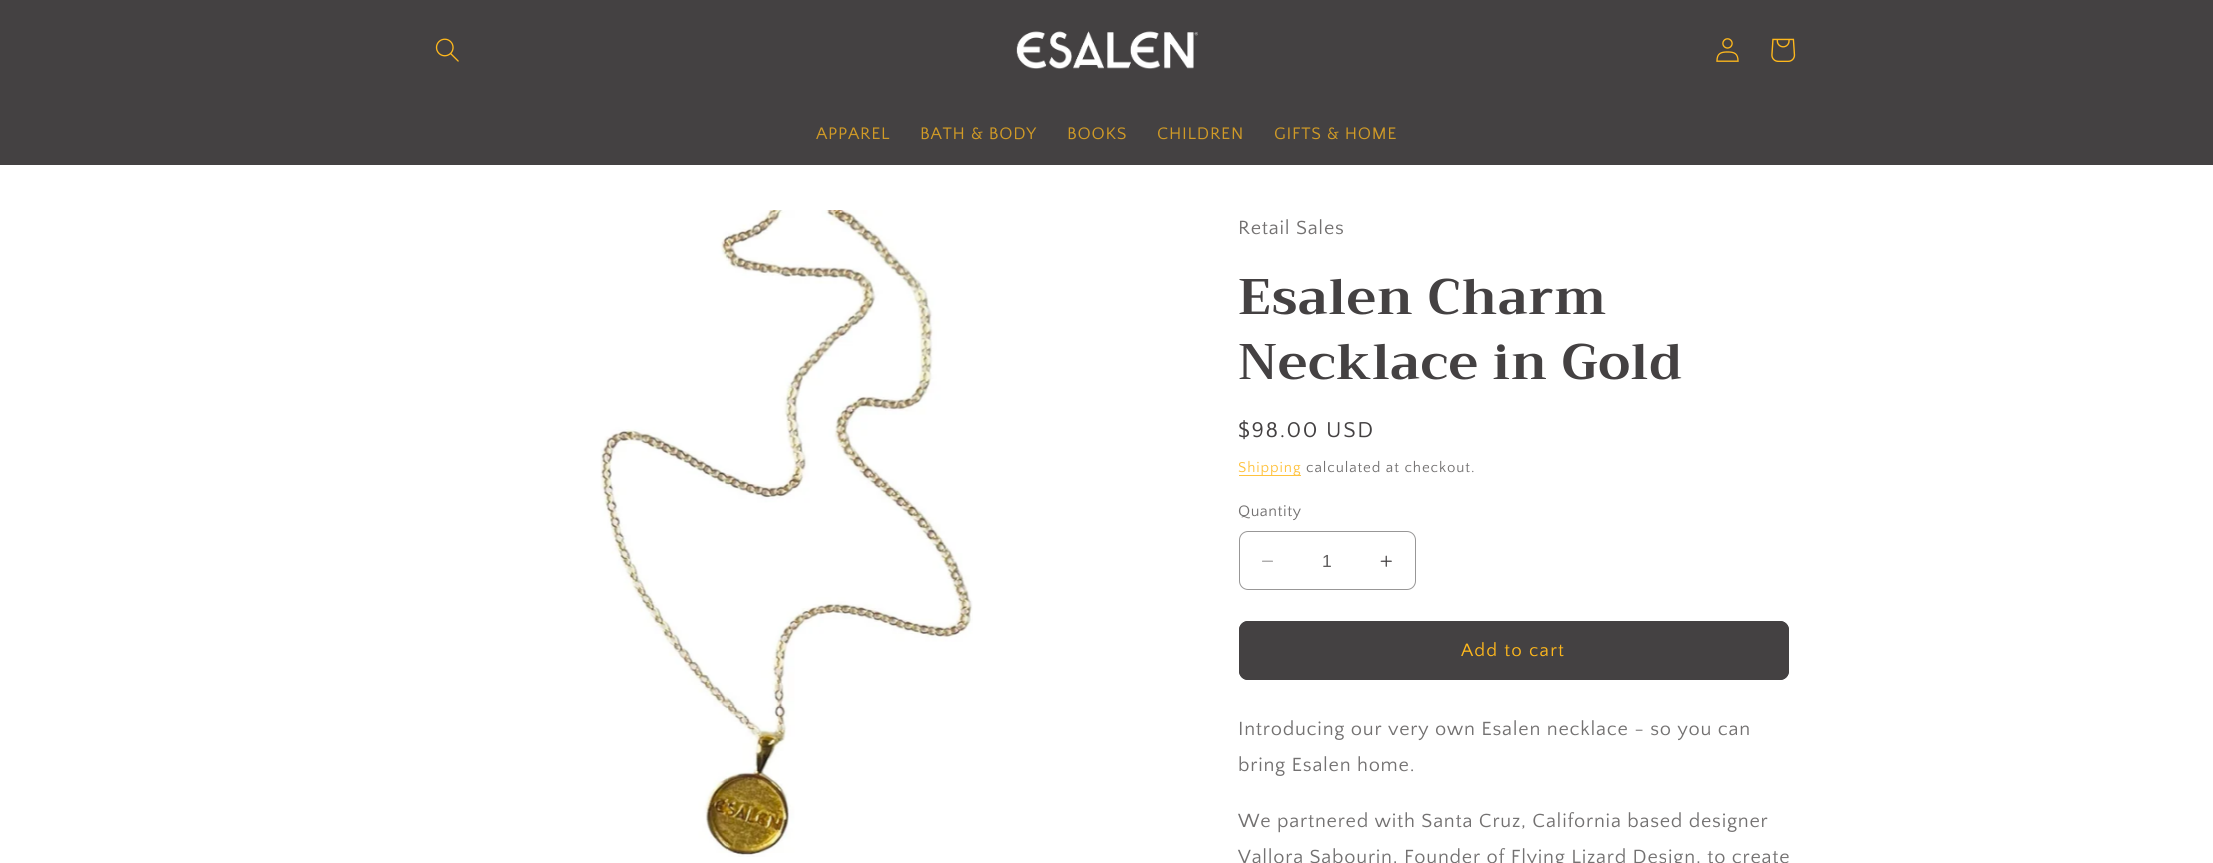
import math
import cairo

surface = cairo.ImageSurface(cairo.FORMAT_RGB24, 2213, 863)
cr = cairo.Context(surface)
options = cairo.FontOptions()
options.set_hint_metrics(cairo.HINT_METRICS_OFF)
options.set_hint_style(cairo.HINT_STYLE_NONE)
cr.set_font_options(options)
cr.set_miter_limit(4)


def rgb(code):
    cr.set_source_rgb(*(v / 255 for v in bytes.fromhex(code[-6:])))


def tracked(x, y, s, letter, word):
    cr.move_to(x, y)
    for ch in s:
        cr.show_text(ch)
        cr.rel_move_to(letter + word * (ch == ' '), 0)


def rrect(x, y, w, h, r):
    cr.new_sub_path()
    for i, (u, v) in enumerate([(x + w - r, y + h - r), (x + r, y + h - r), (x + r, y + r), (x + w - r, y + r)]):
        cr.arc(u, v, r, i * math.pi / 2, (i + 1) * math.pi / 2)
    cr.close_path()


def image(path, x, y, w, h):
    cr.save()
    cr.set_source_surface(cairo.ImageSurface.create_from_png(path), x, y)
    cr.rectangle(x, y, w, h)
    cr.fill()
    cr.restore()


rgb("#ffffff")
cr.paint()
rgb("#444142")
cr.rectangle(0, 0, 2213, 165)
cr.fill()
image("img/1.png", 435, 38, 24, 24)
image("img/2.png", 1016, 31, 182, 38)
image("img/3.png", 1716, 38, 23, 24)
image("img/4.png", 1771, 38, 25, 24)
image("img/5.png", 600, 210, 373, 647)
rgb("#ffc33e")
cr.rectangle(1239, 475, 62, 1)
cr.fill()
image("img/6.png", 1262, 560, 11, 2)
image("img/7.png", 1380, 555, 12, 12)
rrect(1239.5, 531.5, 176, 58, 8.5)
rgb("#989797")
cr.set_line_width(1)
cr.stroke()
rgb("#444142")
rrect(1239, 621, 550, 59, 9)
cr.fill()
rrect(1239.5, 621.5, 549, 58, 8.5)
cr.stroke()
cr.select_font_face("Quattrocento Sans")
cr.set_font_size(17.5)
rgb("#d09a26")
for x, y, s in [
    (816, 139, "APPAREL"),
    (920, 139, "BATH & BODY"),
    (1067, 139, "BOOKS"),
    (1157, 139, "CHILDREN"),
    (1274, 139, "GIFTS & HOME"),
]:
    tracked(x, y, s, 0.75, 0)
cr.set_font_size(20)
rgb("#737171")
tracked(1238, 234, "Retail Sales", 0.75, 0)
cr.select_font_face("Trirong", cairo.FONT_SLANT_NORMAL, cairo.FONT_WEIGHT_BOLD)
cr.set_font_size(50)
rgb("#444142")
tracked(1238, 314, "Esalen Charm", 0.75, 0)
tracked(1238, 379, "Necklace in Gold", 0.75, 0)
cr.select_font_face("Quattrocento Sans")
cr.set_font_size(22.5)
tracked(1238, 437, "$98.00 USD", 1.6, 0)
cr.set_font_size(15)
rgb("#ffc23d")
tracked(1238, 472, "Shipping", 0.9, 0)
rgb("#737171")
tracked(1306, 472, "calculated at checkout.", 0.9, 0)
cr.set_font_size(16)
tracked(1238, 516, "Quantity", 0.5, 0)
cr.select_font_face("Liberation Sans")
cr.set_font_size(17.5)
rgb("#605e5e")
cr.move_to(1322, 567)
cr.show_text("1")
cr.select_font_face("Quattrocento Sans")
cr.set_font_size(18.75)
rgb("#ffb81c")
tracked(1461, 656, "Add to cart", 1.25, 0)
cr.set_font_size(20)
rgb("#737171")
for x, y, s in [
    (1238, 735, "Introducing our very own Esalen necklace - so you can"),
    (1238, 771, "bring Esalen home."),
    (1238, 827, "We partnered with Santa Cruz, California based designer"),
    (1238, 863, "Vallora Sabourin, Founder of Flying Lizard Design, to create"),
]:
    tracked(x, y, s, 0.75, 0)
surface.write_to_png("page.png")
